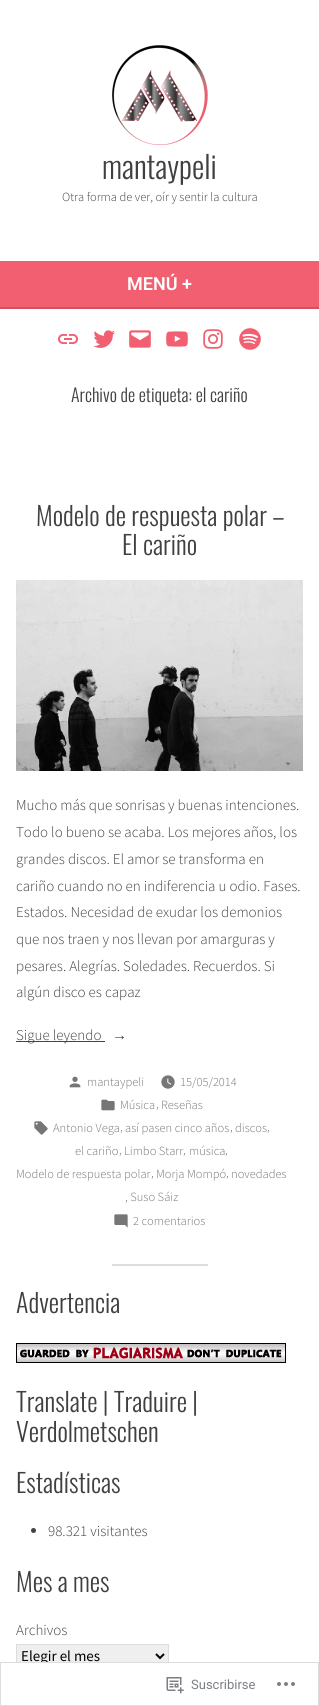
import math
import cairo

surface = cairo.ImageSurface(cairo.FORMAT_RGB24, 319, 1706)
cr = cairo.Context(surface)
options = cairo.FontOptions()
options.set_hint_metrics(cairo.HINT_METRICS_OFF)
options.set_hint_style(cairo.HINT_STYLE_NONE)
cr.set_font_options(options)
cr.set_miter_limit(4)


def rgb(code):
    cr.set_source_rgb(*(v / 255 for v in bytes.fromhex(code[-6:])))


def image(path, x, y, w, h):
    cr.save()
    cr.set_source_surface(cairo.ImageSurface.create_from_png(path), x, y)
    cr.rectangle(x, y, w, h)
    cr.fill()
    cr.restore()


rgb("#ffffff")
cr.paint()
image("img/1.png", 112, 45, 96, 100)
rgb("#f25f70")
cr.rectangle(0, 261, 319, 46)
cr.fill()
rgb("#ce515f")
cr.rectangle(0, 307, 319, 2)
cr.fill()
image("img/2.png", 58, 334, 20, 10)
image("img/3.png", 93, 330, 22, 18)
image("img/4.png", 129, 330, 22, 18)
image("img/5.png", 166, 331, 22, 16)
image("img/6.png", 203, 329, 20, 20)
image("img/7.png", 239, 328, 22, 22)
image("img/8.png", 16, 580, 287, 191)
rgb("#444444")
cr.rectangle(16, 1041, 89, 1)
cr.fill()
image("img/9.png", 69, 1076, 12, 12)
image("img/10.png", 161, 1075, 14, 14)
image("img/11.png", 101, 1099, 14, 12)
image("img/12.png", 34, 1121, 14, 14)
image("img/13.png", 114, 1214, 14, 14)
rgb("#dddddd")
cr.rectangle(112, 1264, 96, 2)
cr.fill()
image("img/14.png", 16, 1343, 270, 20)
rgb("#444444")
cr.arc(33.5, 1530.5, 2.5, 0, 2 * math.pi)
cr.fill()
rgb("#efefef")
cr.rectangle(16.5, 1644.5, 152, 22)
cr.fill_preserve()
rgb("#dddddd")
cr.set_line_width(1)
cr.stroke()
cr.new_path()
cr.move_to(156, 1654)
cr.line_to(160, 1658)
cr.line_to(164, 1654)
rgb("#000000")
cr.set_line_width(2)
cr.stroke()
cr.select_font_face("Oswald Light")
cr.set_font_size(31)
rgb("#404040")
cr.move_to(102, 179)
cr.show_text("mantaypeli")
cr.select_font_face("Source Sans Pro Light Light")
cr.set_font_size(12.5)
cr.move_to(62, 201)
cr.show_text("Otra forma de ver, oír y sentir la cultura")
cr.select_font_face("Roboto SemiBold")
cr.set_font_size(18)
rgb("#ffffff")
cr.move_to(127, 290)
cr.show_text("MENÚ +")
cr.select_font_face("Oswald Light")
rgb("#404040")
cr.move_to(71, 402)
cr.show_text("Archivo de etiqueta: el cariño")
cr.set_font_size(26)
cr.move_to(36, 526)
cr.show_text("Modelo de respuesta polar –")
cr.move_to(122, 555)
cr.show_text("El cariño")
cr.select_font_face("Source Sans Pro Light Light")
cr.set_font_size(15)
for x, y, s in [
    (16, 810, "Mucho más que sonrisas y buenas intenciones."),
    (16, 837, "Todo lo bueno se acaba. Los mejores años, los"),
    (16, 864, "grandes discos. El amor se transforma en"),
    (16, 891, "cariño cuando no en indiferencia u odio. Fases."),
    (16, 917, "Estados. Necesidad de exudar los demonios"),
    (16, 944, "que nos traen y nos llevan por amarguras y"),
    (16, 971, "pesares. Alegrías. Soledades. Recuerdos. Si"),
    (16, 997, "algún disco es capaz"),
    (16, 1040, "Sigue leyendo"),
]:
    cr.move_to(x, y)
    cr.show_text(s)
cr.select_font_face("Liberation Sans")
cr.move_to(112, 1040)
cr.show_text("→")
cr.select_font_face("Source Sans Pro Light Light")
cr.set_font_size(12.5)
rgb("#767676")
for x, y, s in [
    (87, 1086, "mantaypeli"),
    (180, 1086, "15/05/2014"),
    (120, 1109, "Música"),
    (156, 1108, ","),
    (161, 1109, "Reseñas"),
    (53, 1132, "Antonio Vega"),
    (120, 1131, ","),
    (125, 1132, "así pasen cinco años"),
    (230, 1131, ","),
    (235, 1132, "discos"),
    (267, 1131, ","),
    (75, 1155, "el cariño"),
    (119, 1154, ","),
    (124, 1155, "Limbo Starr"),
    (183, 1154, ","),
    (189, 1155, "música"),
    (225, 1154, ","),
    (16, 1178, "Modelo de respuesta polar"),
    (151, 1177, ","),
    (156, 1178, "Morja Mompó"),
    (226, 1177, ","),
    (231, 1178, "novedades"),
    (125, 1201, ", Suso Sáiz"),
    (133, 1225, "2 comentarios"),
]:
    cr.move_to(x, y)
    cr.show_text(s)
cr.select_font_face("Oswald Light")
cr.set_font_size(26)
rgb("#404040")
for x, y, s in [
    (16, 1313, "Advertencia"),
    (16, 1412, "Translate | Traduire |"),
    (16, 1442, "Verdolmetschen"),
    (16, 1493, "Estadísticas"),
]:
    cr.move_to(x, y)
    cr.show_text(s)
cr.select_font_face("Source Sans Pro Light Light")
cr.set_font_size(15)
cr.move_to(48, 1536)
cr.show_text("98.321 visitantes")
cr.select_font_face("Oswald Light")
cr.set_font_size(26)
cr.move_to(16, 1592)
cr.show_text("Mes a mes")
cr.select_font_face("Source Sans Pro Light Light")
cr.set_font_size(15)
cr.move_to(16, 1635)
cr.show_text("Archivos")
cr.select_font_face("Source Sans Pro")
rgb("#000000")
cr.move_to(21, 1661)
cr.show_text("Elegir el mes")
cr.set_source_rgba(1, 1, 1, 0.98)
cr.rectangle(16, 1662, 153, 5)
cr.fill()
cr.rectangle(0.5, 1662.5, 318, 43)
cr.set_source_rgba(0.863, 0.863, 0.871, 0.98)
cr.set_line_width(1)
cr.stroke()
image("img/15.png", 166, 1677, 18, 17)
cr.select_font_face("Roboto")
cr.set_font_size(13)
rgb("#7b7f85")
cr.move_to(191, 1689)
cr.show_text("Suscribirse")
image("img/16.png", 277, 1682, 18, 4)
surface.write_to_png("page.png")
